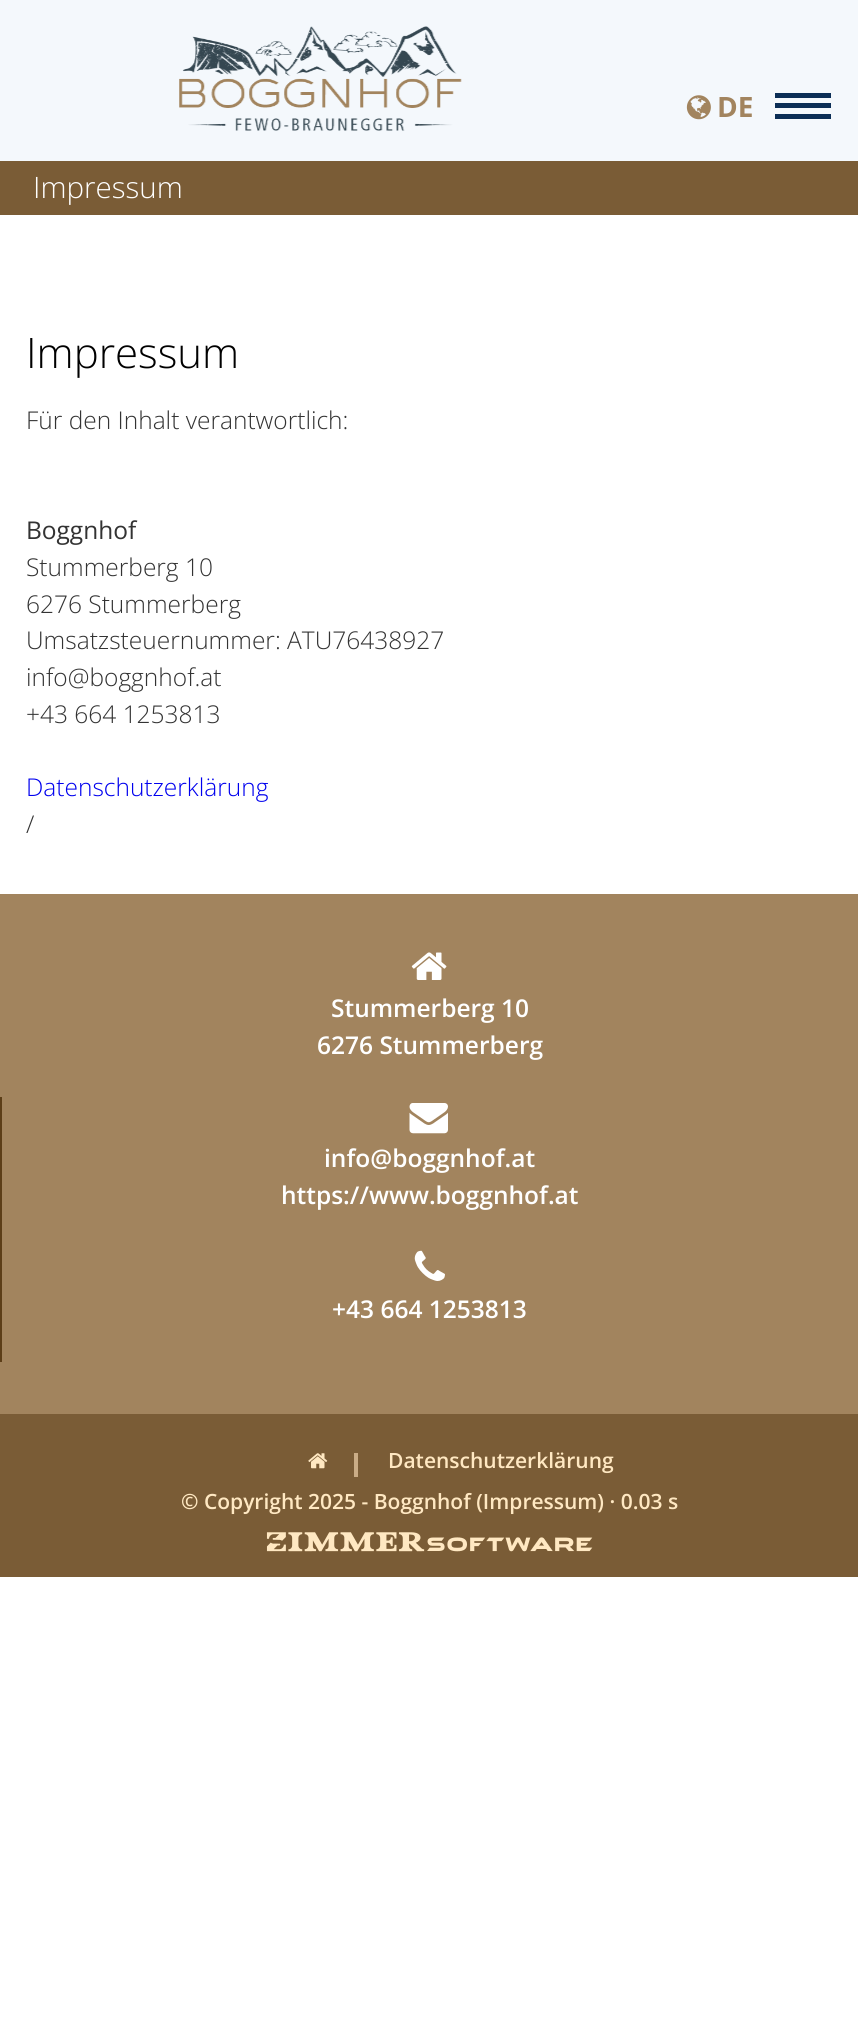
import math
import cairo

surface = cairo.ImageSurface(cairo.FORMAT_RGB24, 858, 2039)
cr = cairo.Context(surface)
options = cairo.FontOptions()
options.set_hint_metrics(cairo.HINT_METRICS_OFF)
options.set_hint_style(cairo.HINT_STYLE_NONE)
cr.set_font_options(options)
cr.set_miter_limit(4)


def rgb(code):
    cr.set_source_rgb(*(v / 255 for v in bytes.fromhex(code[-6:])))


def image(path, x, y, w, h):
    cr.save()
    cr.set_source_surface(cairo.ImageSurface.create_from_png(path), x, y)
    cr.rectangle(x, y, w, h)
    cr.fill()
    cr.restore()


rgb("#ffffff")
cr.paint()
rgb("#f4f8fc")
cr.rectangle(0, 0, 858, 161)
cr.fill()
image("img/1.png", 179, 26, 283, 105)
image("img/2.png", 686, 95, 25, 25)
for x, y, w, h, color in [
    (775, 93, 56, 5, "#0b2e56"),
    (775, 103, 56, 5, "#0b2e56"),
    (775, 114, 56, 5, "#0b2e56"),
    (0, 161, 858, 54, "#7a5c36"),
    (0, 894, 858, 520, "#a2845e"),
]:
    rgb(color)
    cr.rectangle(x, y, w, h)
    cr.fill()
image("img/3.png", 411, 952, 36, 28)
rgb("#5c3e18")
cr.rectangle(0, 1097, 2, 265)
cr.fill()
image("img/4.png", 409, 1103, 39, 31)
image("img/5.png", 414, 1250, 31, 31)
rgb("#7a5c36")
cr.rectangle(0, 1414, 858, 163)
cr.fill()
image("img/6.png", 308, 1453, 20, 16)
rgb("#caac86")
cr.rectangle(354, 1453, 4, 24)
cr.fill()
image("img/7.png", 266, 1532, 327, 20)
cr.select_font_face("Open Sans", cairo.FONT_SLANT_NORMAL, cairo.FONT_WEIGHT_BOLD)
cr.set_font_size(28)
rgb("#a2845e")
cr.move_to(717, 117)
cr.show_text("DE")
cr.select_font_face("Open Sans Light")
cr.set_font_size(29.5)
rgb("#ffffff")
cr.move_to(33, 198)
cr.show_text("Impressum")
cr.set_font_size(42)
rgb("#000000")
cr.move_to(26, 368)
cr.show_text("Impressum")
cr.set_font_size(24.5)
rgb("#333333")
cr.move_to(26, 429)
cr.show_text("Für den Inhalt verantwortlich:")
cr.select_font_face("Open Sans")
cr.move_to(26, 539)
cr.show_text("Boggnhof")
cr.select_font_face("Open Sans Light")
for x, y, s in [
    (26, 576, "Stummerberg 10"),
    (26, 613, "6276 Stummerberg"),
    (26, 649, "Umsatzsteuernummer: ATU76438927"),
    (26, 686, "info@boggnhof.at"),
    (26, 723, "+43 664 1253813"),
]:
    cr.move_to(x, y)
    cr.show_text(s)
rgb("#0000ee")
cr.move_to(26, 796)
cr.show_text("Datenschutzerklärung")
rgb("#333333")
cr.move_to(26, 833)
cr.show_text("/")
cr.select_font_face("Open Sans SemiBold")
rgb("#ffffff")
for x, y, s in [
    (331, 1017, "Stummerberg 10"),
    (317, 1054, "6276 Stummerberg"),
    (324, 1167, "info@boggnhof.at"),
    (281, 1204, "https://www.boggnhof.at"),
    (332, 1318, "+43 664 1253813"),
]:
    cr.move_to(x, y)
    cr.show_text(s)
cr.set_font_size(21)
rgb("#ffe8c2")
cr.move_to(388, 1468)
cr.show_text("Datenschutzerklärung")
cr.move_to(181, 1509)
cr.show_text("© Copyright 2025 - Boggnhof (Impressum) · 0.03 s")
surface.write_to_png("page.png")
